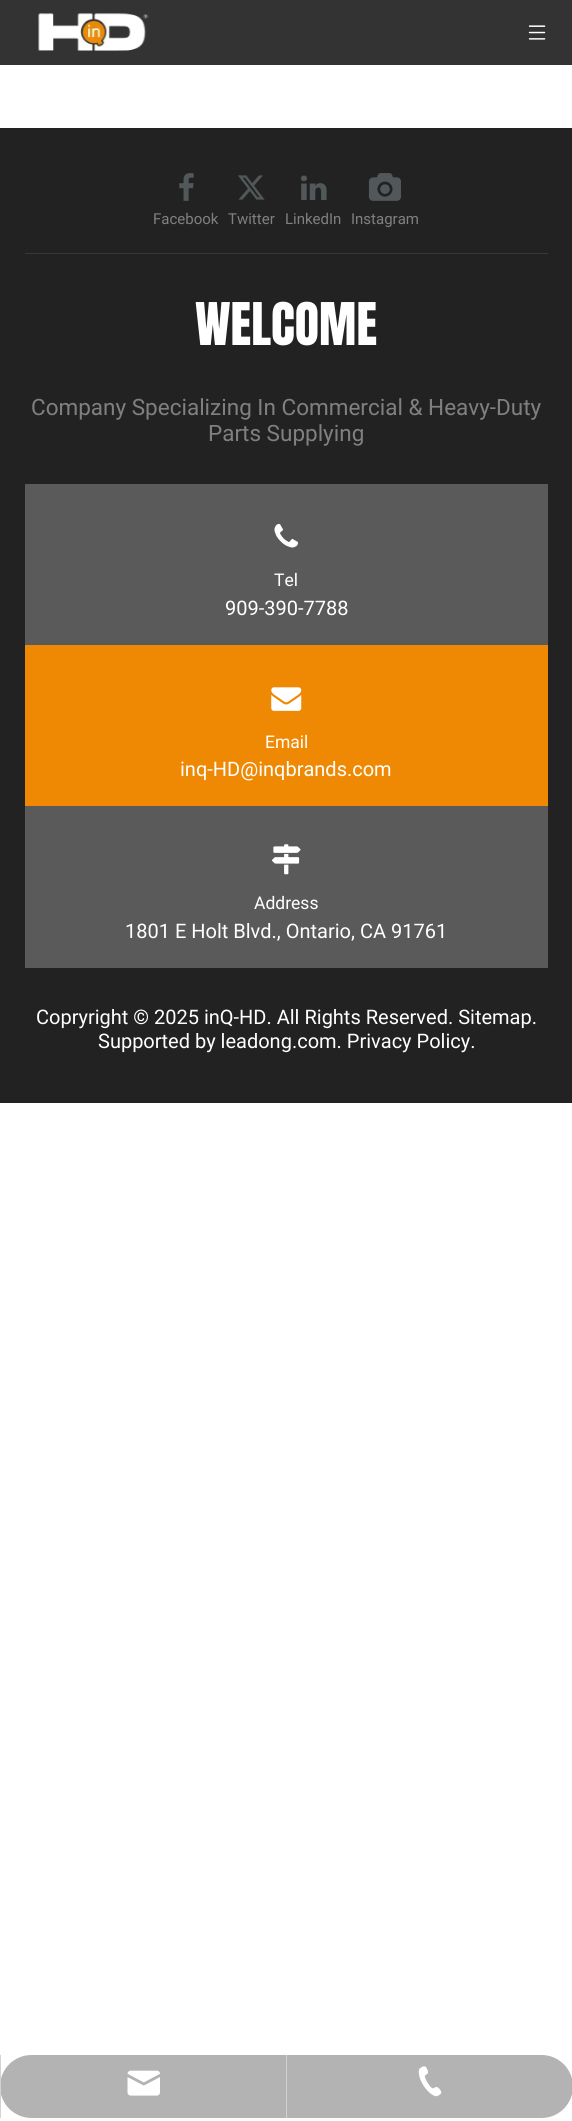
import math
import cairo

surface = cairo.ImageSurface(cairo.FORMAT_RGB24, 572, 2121)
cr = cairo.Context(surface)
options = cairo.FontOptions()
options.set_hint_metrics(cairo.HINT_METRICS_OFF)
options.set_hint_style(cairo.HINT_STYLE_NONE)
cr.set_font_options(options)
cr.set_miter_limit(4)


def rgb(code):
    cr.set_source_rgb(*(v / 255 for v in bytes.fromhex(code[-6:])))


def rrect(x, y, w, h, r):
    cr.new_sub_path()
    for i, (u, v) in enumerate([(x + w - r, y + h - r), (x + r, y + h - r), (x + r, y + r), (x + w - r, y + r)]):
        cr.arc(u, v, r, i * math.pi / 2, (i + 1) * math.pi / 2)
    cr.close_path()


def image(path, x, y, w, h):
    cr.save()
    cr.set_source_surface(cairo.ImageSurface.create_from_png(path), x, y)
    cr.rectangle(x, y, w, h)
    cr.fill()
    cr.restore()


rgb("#ffffff")
cr.paint()
rgb("#333333")
cr.rectangle(0, 0, 572, 65)
cr.fill()
image("img/1.png", 38, 13, 111, 38)
image("img/2.png", 528, 25, 18, 15)
rgb("#222222")
cr.rectangle(0, 128, 572, 975)
cr.fill()
rgb("#383838")
cr.rectangle(25, 253, 523, 1)
cr.fill()
image("img/3.png", 179, 173, 15, 28)
image("img/4.png", 238, 175, 27, 25)
image("img/5.png", 301, 175, 26, 25)
image("img/6.png", 368, 173, 33, 28)
rgb("#5a5a5a")
cr.rectangle(25, 484, 523, 161)
cr.fill()
image("img/7.png", 274, 523, 24, 25)
rgb("#ef8903")
cr.rectangle(25, 645, 523, 161)
cr.fill()
image("img/8.png", 271, 687, 31, 24)
rgb("#5a5a5a")
cr.rectangle(25, 806, 523, 162)
cr.fill()
image("img/9.png", 271, 844, 30, 31)
rgb("#b3b3b3")
rrect(0, 2055, 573, 63, 31.5)
cr.fill()
rgb("#d3d3d3")
cr.rectangle(0, 2055, 1, 63)
cr.fill()
image("img/10.png", 127, 2070, 33, 26)
cr.rectangle(286, 2055, 1, 63)
cr.fill()
image("img/11.png", 418, 2066, 24, 31)
cr.select_font_face("Roboto")
cr.set_font_size(15)
rgb("#808080")
for x, y, s in [
    (153, 224, "Facebook"),
    (228, 224, "Twitter"),
    (285, 224, "LinkedIn"),
    (351, 224, "Instagram"),
]:
    cr.move_to(x, y)
    cr.show_text(s)
cr.select_font_face("Anton")
cr.set_font_size(50)
rgb("#ffffff")
cr.move_to(195, 345)
cr.show_text("WELCOME")
cr.select_font_face("Roboto")
cr.set_font_size(22.5)
rgb("#808080")
cr.move_to(31, 415)
cr.show_text("Company Specializing In Commercial & Heavy-Duty")
cr.move_to(208, 441)
cr.show_text("Parts Supplying")
cr.set_font_size(17.5)
rgb("#ffffff")
cr.move_to(274, 586)
cr.show_text("Tel")
cr.set_font_size(20)
cr.move_to(225, 615)
cr.show_text("909-390-7788")
cr.set_font_size(17.5)
cr.move_to(265, 748)
cr.show_text("Email")
cr.set_font_size(20)
cr.move_to(180, 776)
cr.show_text("inq-HD@inqbrands.com")
cr.set_font_size(17.5)
cr.move_to(254, 909)
cr.show_text("Address")
cr.set_font_size(20)
for x, y, s in [
    (125, 938, "1801 E Holt Blvd., Ontario, CA 91761"),
    (36, 1024, "Copryright © 2025 inQ-HD. All Rights Reserved. Sitemap."),
    (98, 1048, "Supported by leadong.com. Privacy Policy."),
]:
    cr.move_to(x, y)
    cr.show_text(s)
surface.write_to_png("page.png")
